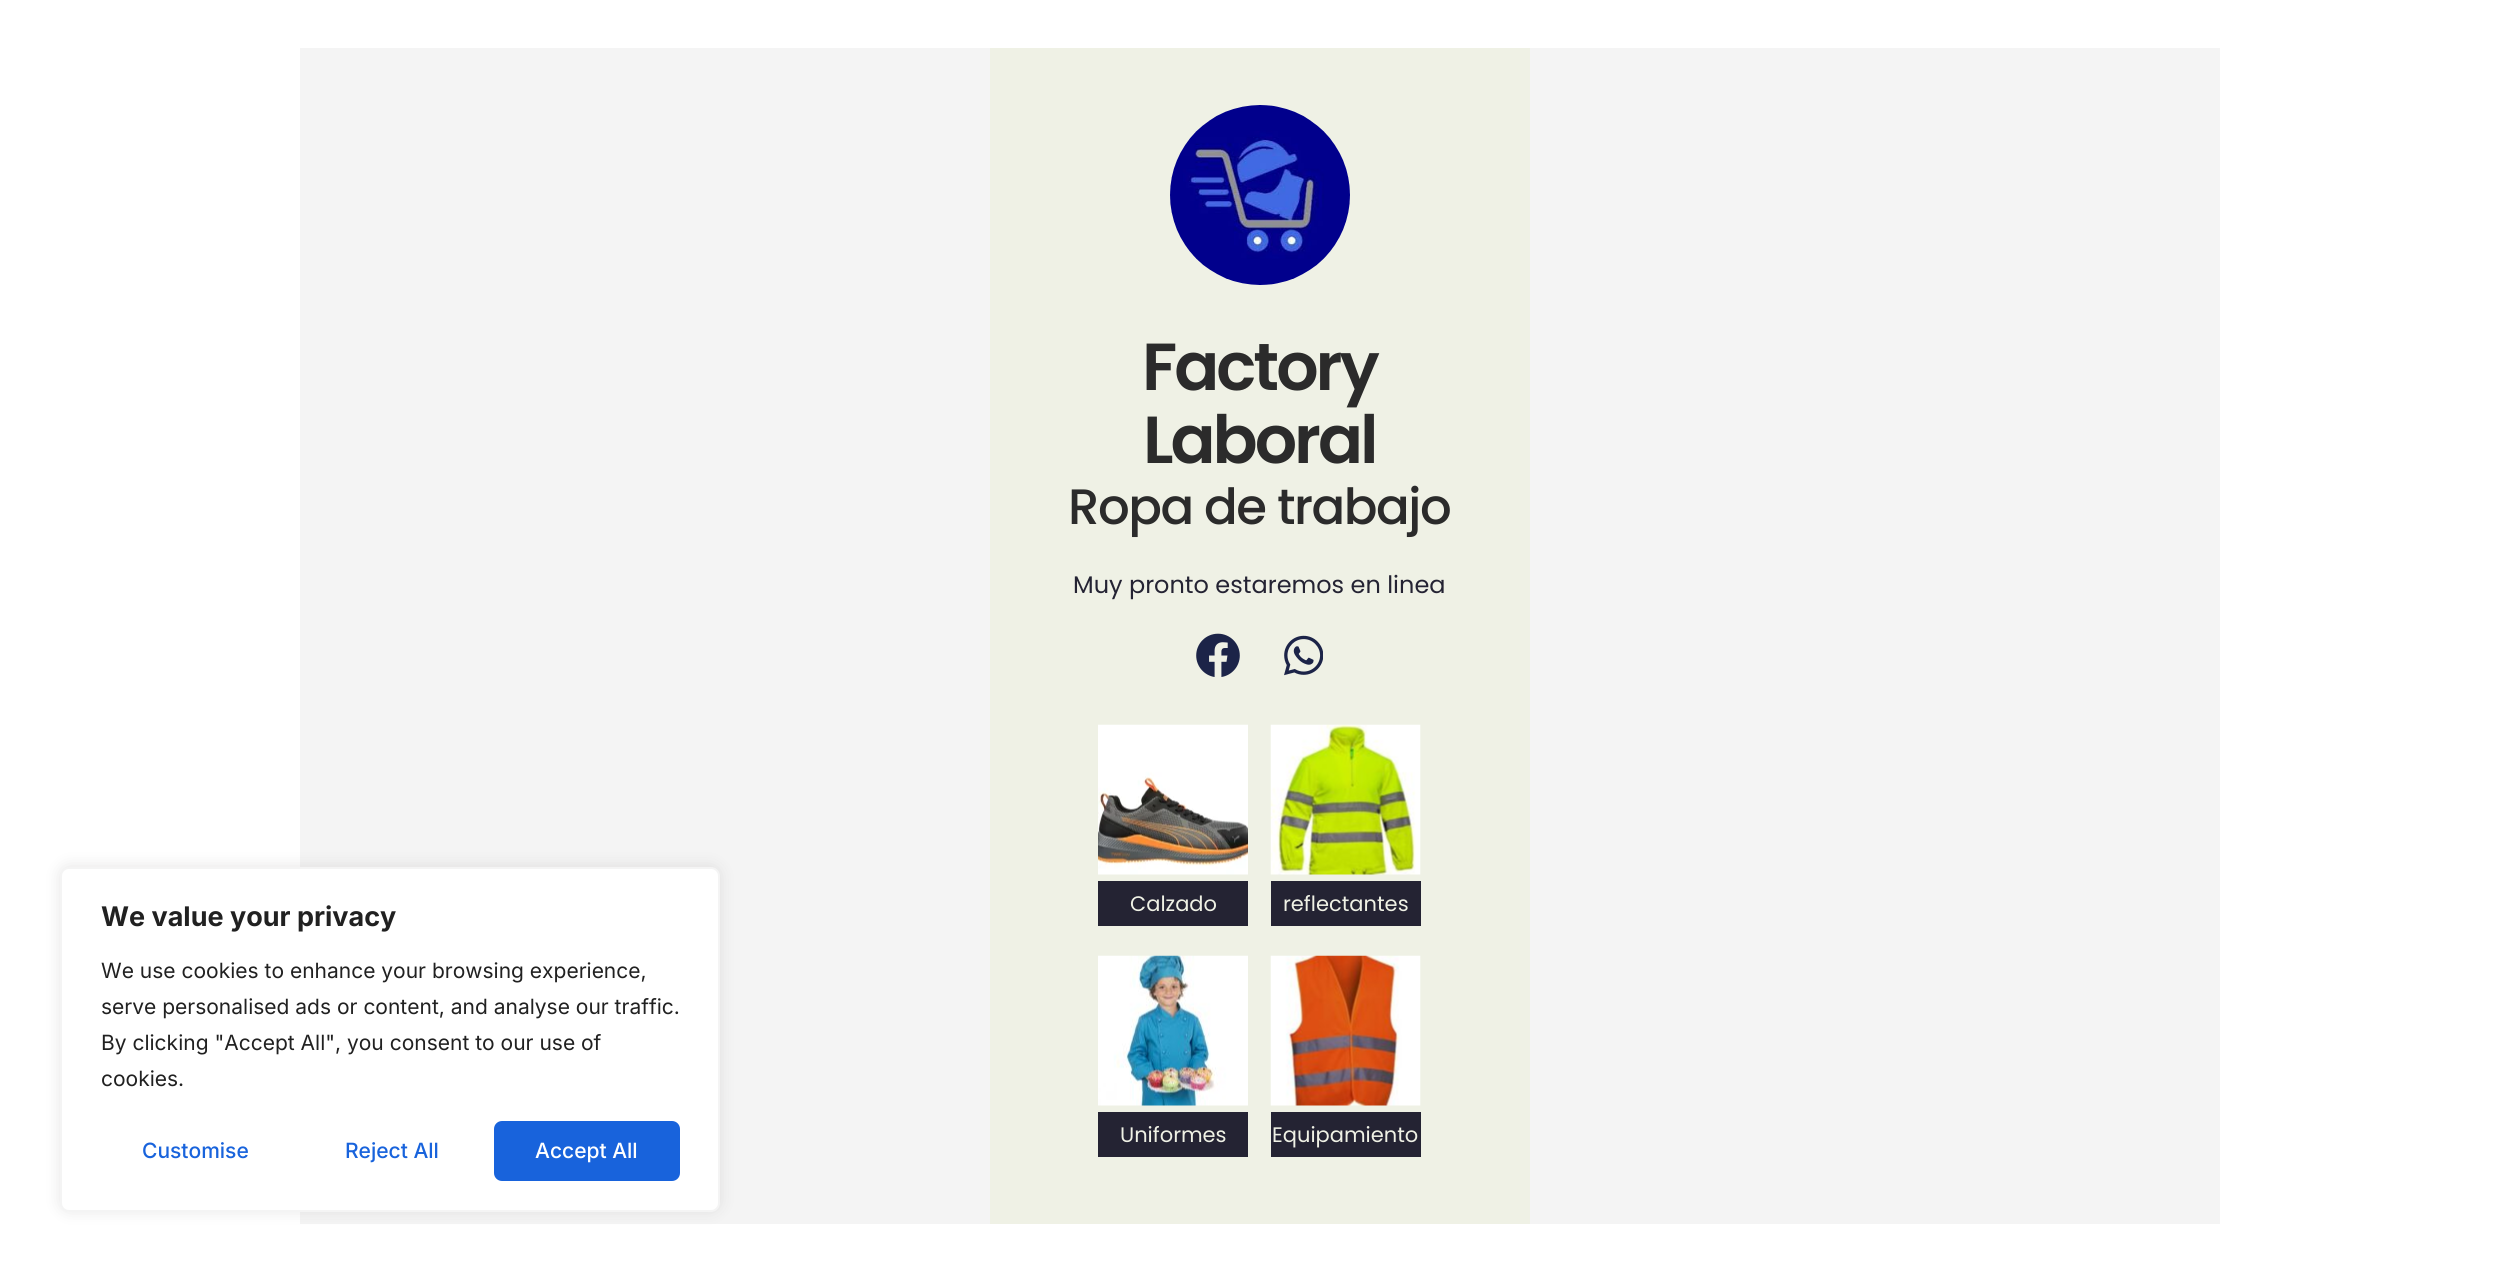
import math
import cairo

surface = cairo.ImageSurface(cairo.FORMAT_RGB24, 2518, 1271)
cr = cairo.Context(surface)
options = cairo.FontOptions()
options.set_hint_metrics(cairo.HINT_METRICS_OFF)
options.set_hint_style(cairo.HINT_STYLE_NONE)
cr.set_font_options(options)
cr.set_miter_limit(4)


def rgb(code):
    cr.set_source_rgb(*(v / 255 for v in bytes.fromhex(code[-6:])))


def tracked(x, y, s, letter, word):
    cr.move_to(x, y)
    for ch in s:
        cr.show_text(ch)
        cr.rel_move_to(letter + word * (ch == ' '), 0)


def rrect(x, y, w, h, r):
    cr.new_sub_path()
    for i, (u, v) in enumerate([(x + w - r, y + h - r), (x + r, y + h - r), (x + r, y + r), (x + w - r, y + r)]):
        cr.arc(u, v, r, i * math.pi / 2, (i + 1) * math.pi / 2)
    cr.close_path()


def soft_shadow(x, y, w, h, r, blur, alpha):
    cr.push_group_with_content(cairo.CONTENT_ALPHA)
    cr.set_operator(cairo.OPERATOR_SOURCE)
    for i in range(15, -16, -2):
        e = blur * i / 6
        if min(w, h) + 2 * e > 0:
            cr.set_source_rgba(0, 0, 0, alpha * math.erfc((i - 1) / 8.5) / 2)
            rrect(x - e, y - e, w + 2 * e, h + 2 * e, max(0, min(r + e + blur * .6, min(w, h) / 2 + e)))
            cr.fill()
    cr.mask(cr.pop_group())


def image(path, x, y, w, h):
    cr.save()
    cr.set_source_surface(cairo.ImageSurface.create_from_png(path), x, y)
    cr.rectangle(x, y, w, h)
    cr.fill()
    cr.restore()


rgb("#ffffff")
cr.paint()
rgb("#f4f4f4")
cr.rectangle(300, 48, 1920, 1176)
cr.fill()
rgb("#acabab")
soft_shadow(60, 866, 660, 345, 9, 7.5, 0.3)
rgb("#ffffff")
rrect(61, 868, 658, 343, 8)
cr.fill_preserve()
rgb("#f4f4f4")
cr.stroke()
rgb("#1863dc")
rrect(494, 1121, 186, 60, 8)
cr.fill()
rgb("#eff1e5")
cr.rectangle(990, 48, 540, 1176)
cr.fill()
image("img/1.png", 1170, 105, 180, 180)
image("img/2.png", 1196, 633, 44, 44)
image("img/3.png", 1284, 635, 39, 41)
image("img/4.png", 1098, 724, 150, 151)
rgb("#242333")
cr.rectangle(1098, 881, 150, 45)
cr.fill()
image("img/5.png", 1270, 724, 151, 151)
cr.rectangle(1271, 881, 150, 45)
cr.fill()
image("img/6.png", 1098, 955, 150, 151)
cr.rectangle(1098, 1112, 150, 45)
cr.fill()
image("img/7.png", 1270, 955, 151, 151)
cr.rectangle(1271, 1112, 150, 45)
cr.fill()
cr.select_font_face("Inter", cairo.FONT_SLANT_NORMAL, cairo.FONT_WEIGHT_BOLD)
cr.set_font_size(27)
rgb("#212121")
cr.move_to(101, 926)
cr.show_text("We value your privacy")
cr.select_font_face("Inter")
cr.set_font_size(21)
for x, y, s in [
    (101, 978, "We use cookies to enhance your browsing experience,"),
    (101, 1014, "serve personalised ads or content, and analyse our traffic."),
    (101, 1050, "By clicking \"Accept All\", you consent to our use of"),
    (101, 1086, "cookies."),
]:
    cr.move_to(x, y)
    cr.show_text(s)
cr.select_font_face("Inter Medium")
rgb("#1863dc")
cr.move_to(142, 1158)
cr.show_text("Customise")
cr.move_to(345, 1158)
cr.show_text("Reject All")
rgb("#ffffff")
cr.move_to(535, 1158)
cr.show_text("Accept All")
cr.select_font_face("Poppins SemiBold")
cr.set_font_size(66.5)
rgb("#2b2b2b")
tracked(1142, 390, "Factory", -3, 0)
tracked(1143, 463, "Laboral", -3, 0)
cr.select_font_face("Poppins Medium")
cr.set_font_size(49.75)
tracked(1068, 524, "Ropa de trabajo", -1.5, 0)
cr.select_font_face("Poppins")
cr.set_font_size(24)
rgb("#242333")
cr.move_to(1073, 593)
cr.show_text("Muy pronto estaremos en linea")
cr.set_font_size(21)
rgb("#eff1e5")
for x, y, s in [
    (1130, 911, "Calzado"),
    (1283, 911, "reflectantes"),
    (1120, 1142, "Uniformes"),
    (1272, 1142, "Equipamiento"),
]:
    cr.move_to(x, y)
    cr.show_text(s)
surface.write_to_png("page.png")
